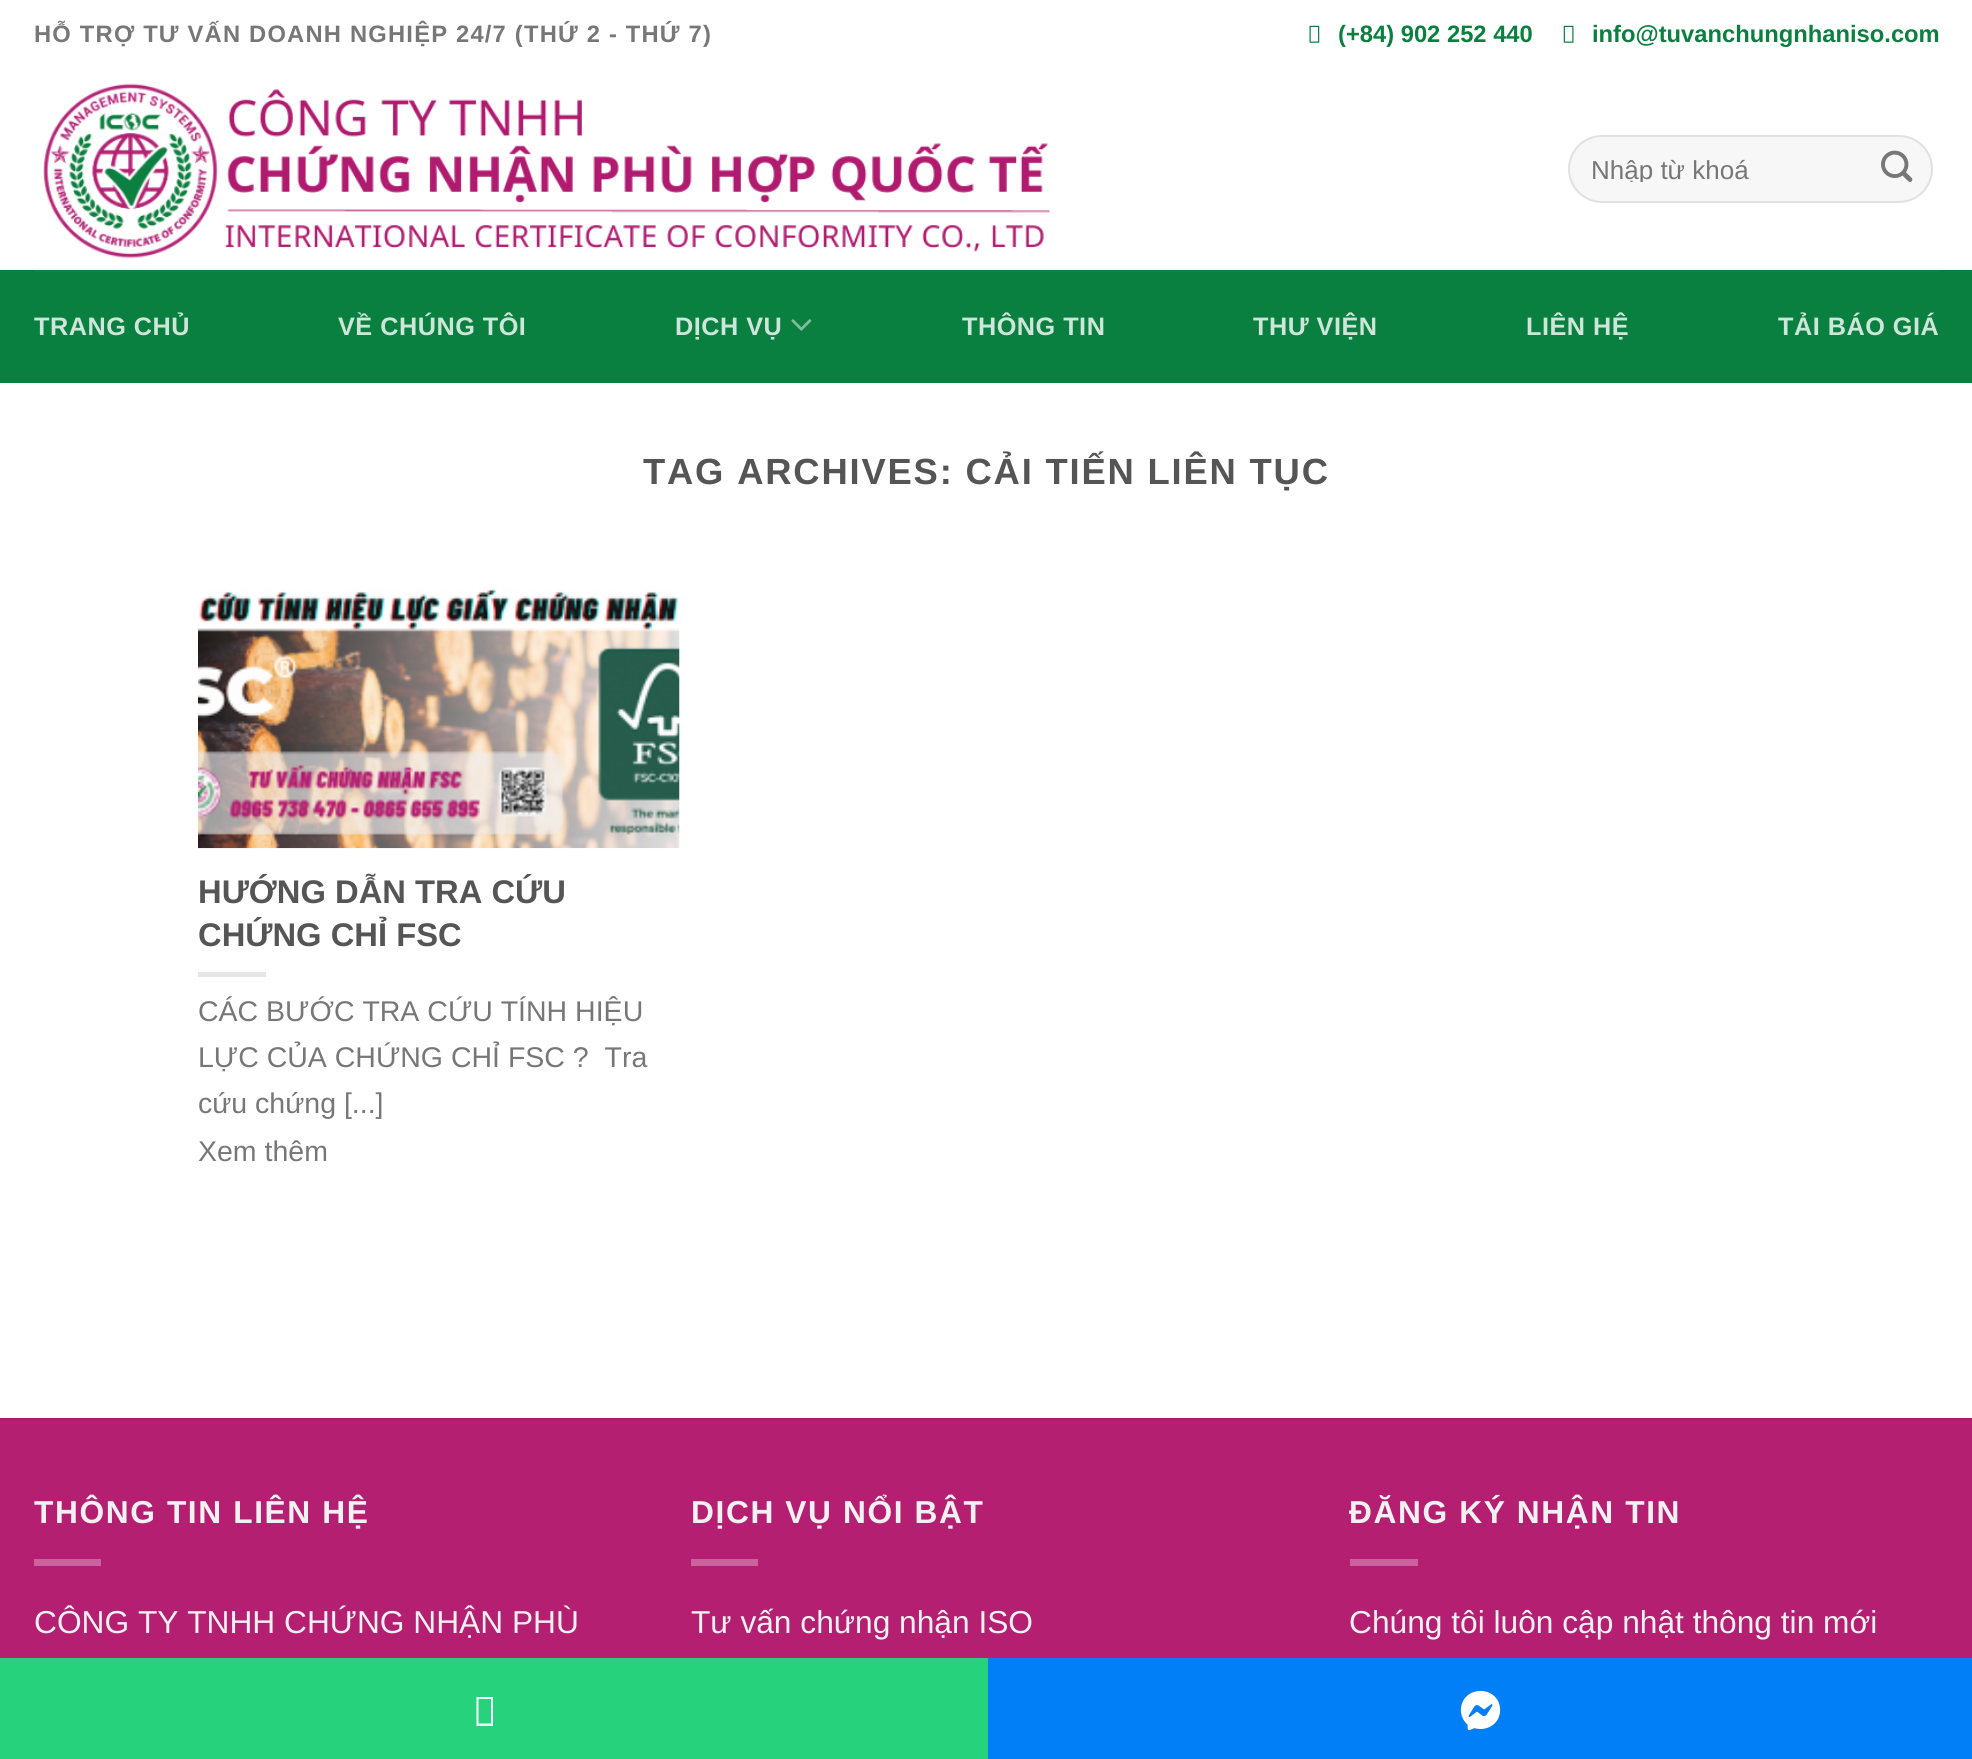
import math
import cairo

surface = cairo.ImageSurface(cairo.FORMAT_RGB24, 1972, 1759)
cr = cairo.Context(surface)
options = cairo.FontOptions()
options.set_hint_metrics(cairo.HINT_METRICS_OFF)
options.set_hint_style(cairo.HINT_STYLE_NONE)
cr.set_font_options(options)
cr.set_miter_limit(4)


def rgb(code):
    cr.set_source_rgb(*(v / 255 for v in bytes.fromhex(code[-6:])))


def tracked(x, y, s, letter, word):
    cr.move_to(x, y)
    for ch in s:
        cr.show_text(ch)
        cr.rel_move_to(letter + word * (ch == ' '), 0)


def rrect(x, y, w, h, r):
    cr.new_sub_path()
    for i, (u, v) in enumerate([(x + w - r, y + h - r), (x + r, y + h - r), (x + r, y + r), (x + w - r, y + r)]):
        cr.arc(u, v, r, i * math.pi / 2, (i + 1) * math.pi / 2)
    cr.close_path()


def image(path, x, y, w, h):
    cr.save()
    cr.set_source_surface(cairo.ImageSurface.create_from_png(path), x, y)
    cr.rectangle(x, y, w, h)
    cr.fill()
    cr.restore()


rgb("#ffffff")
cr.paint()
image("img/1.png", 1309, 25, 11, 18)
image("img/2.png", 1563, 25, 11, 18)
image("img/3.png", 43, 83, 1007, 176)
rgb("#f7f7f7")
rrect(1568, 135, 365, 68, 34)
cr.fill()
rrect(1569, 136, 363, 66, 33)
cr.set_source_rgba(0, 0, 0, 0.09)
cr.stroke()
image("img/4.png", 1881, 150, 32, 32)
rgb("#0a8040")
cr.rectangle(0, 270, 1972, 113)
cr.fill()
rgb("#157f46")
cr.rectangle(34, 270, 1906, 2)
cr.fill()
image("img/5.png", 791, 319, 21, 12)
image("img/6.png", 198, 588, 482, 261)
for x, y, w, h, color in [
    (198, 972, 68, 5, "#e6e6e6"),
    (0, 1420, 1972, 238, "#b41f72"),
    (0, 1418, 1972, 2, "#ab1d6c"),
    (34, 1559, 67, 7, "#cb629c"),
    (691, 1559, 67, 7, "#cb629c"),
    (1350, 1559, 68, 7, "#cb629c"),
    (0, 1658, 988, 101, "#26d37c"),
]:
    rgb(color)
    cr.rectangle(x, y, w, h)
    cr.fill()
rgb("#ffffff")
cr.new_path()
cr.move_to(476.5, 1726)
cr.line_to(476.5, 1697)
cr.line_to(493, 1697)
cr.line_to(493, 1726)
cr.close_path()
cr.move_to(478.5, 1723.5)
cr.line_to(491, 1723.5)
cr.line_to(491, 1699)
cr.line_to(478.5, 1699)
cr.close_path()
cr.fill()
rgb("#007ff7")
cr.rectangle(988, 1658, 984, 101)
cr.fill()
image("img/7.png", 1460, 1690, 41, 41)
cr.select_font_face("Liberation Sans", cairo.FONT_SLANT_NORMAL, cairo.FONT_WEIGHT_BOLD)
cr.set_font_size(23.75)
rgb("#777777")
tracked(34, 42, "HỖ TRỢ TƯ VẤN DOANH NGHIỆP 24/7 (THỨ 2 - THỨ 7)", 1.2, 0)
rgb("#0a8040")
cr.move_to(1338, 42)
cr.show_text("(+84) 902 252 440")
cr.move_to(1592, 42)
cr.show_text("info@tuvanchungnhaniso.com")
cr.save()
cr.rectangle(1591, 153, 310, 29)
cr.clip()
cr.select_font_face("Liberation Sans")
cr.set_font_size(26)
rgb("#777777")
cr.move_to(1591, 179)
cr.show_text("Nhập từ khoá")
cr.restore()
cr.set_font_size(25.25)
rgb("#cee6d9")
for x, y, s in [
    (34, 335, "TRANG CHỦ"),
    (338, 335, "VỀ CHÚNG TÔI"),
    (675, 335, "DỊCH VỤ"),
    (962, 335, "THÔNG TIN"),
    (1253, 335, "THƯ VIỆN"),
    (1526, 335, "LIÊN HỆ"),
    (1778, 335, "TẢI BÁO GIÁ"),
]:
    tracked(x, y, s, 0.5, 0)
cr.set_font_size(36.4)
rgb("#555555")
tracked(643, 484, "TAG ARCHIVES: CẢI TIẾN LIÊN TỤC", 1.8, 0)
cr.set_font_size(32.75)
cr.move_to(198, 903)
cr.show_text("HƯỚNG DẪN TRA CỨU")
cr.move_to(198, 946)
cr.show_text("CHỨNG CHỈ FSC")
cr.select_font_face("Liberation Sans")
cr.set_font_size(28.5)
rgb("#777777")
for x, y, s in [
    (198, 1021, "CÁC BƯỚC TRA CỨU TÍNH HIỆU"),
    (198, 1067, "LỰC CỦA CHỨNG CHỈ FSC ?  Tra"),
    (198, 1113, "cứu chứng [...]"),
    (198, 1161, "Xem thêm"),
]:
    cr.move_to(x, y)
    cr.show_text(s)
cr.select_font_face("Liberation Sans", cairo.FONT_SLANT_NORMAL, cairo.FONT_WEIGHT_BOLD)
cr.set_font_size(31.7)
rgb("#f1f1f1")
tracked(34, 1523, "THÔNG TIN LIÊN HỆ", 1.6, 0)
cr.select_font_face("Liberation Sans")
cr.move_to(34, 1633)
cr.show_text("CÔNG TY TNHH CHỨNG NHẬN PHÙ")
cr.select_font_face("Liberation Sans", cairo.FONT_SLANT_NORMAL, cairo.FONT_WEIGHT_BOLD)
tracked(691, 1523, "DỊCH VỤ NỔI BẬT", 1.6, 0)
cr.select_font_face("Liberation Sans")
cr.move_to(691, 1633)
cr.show_text("Tư vấn chứng nhận ISO")
cr.select_font_face("Liberation Sans", cairo.FONT_SLANT_NORMAL, cairo.FONT_WEIGHT_BOLD)
tracked(1349, 1523, "ĐĂNG KÝ NHẬN TIN", 1.6, 0)
cr.select_font_face("Liberation Sans")
cr.move_to(1349, 1633)
cr.show_text("Chúng tôi luôn cập nhật thông tin mới")
surface.write_to_png("page.png")
